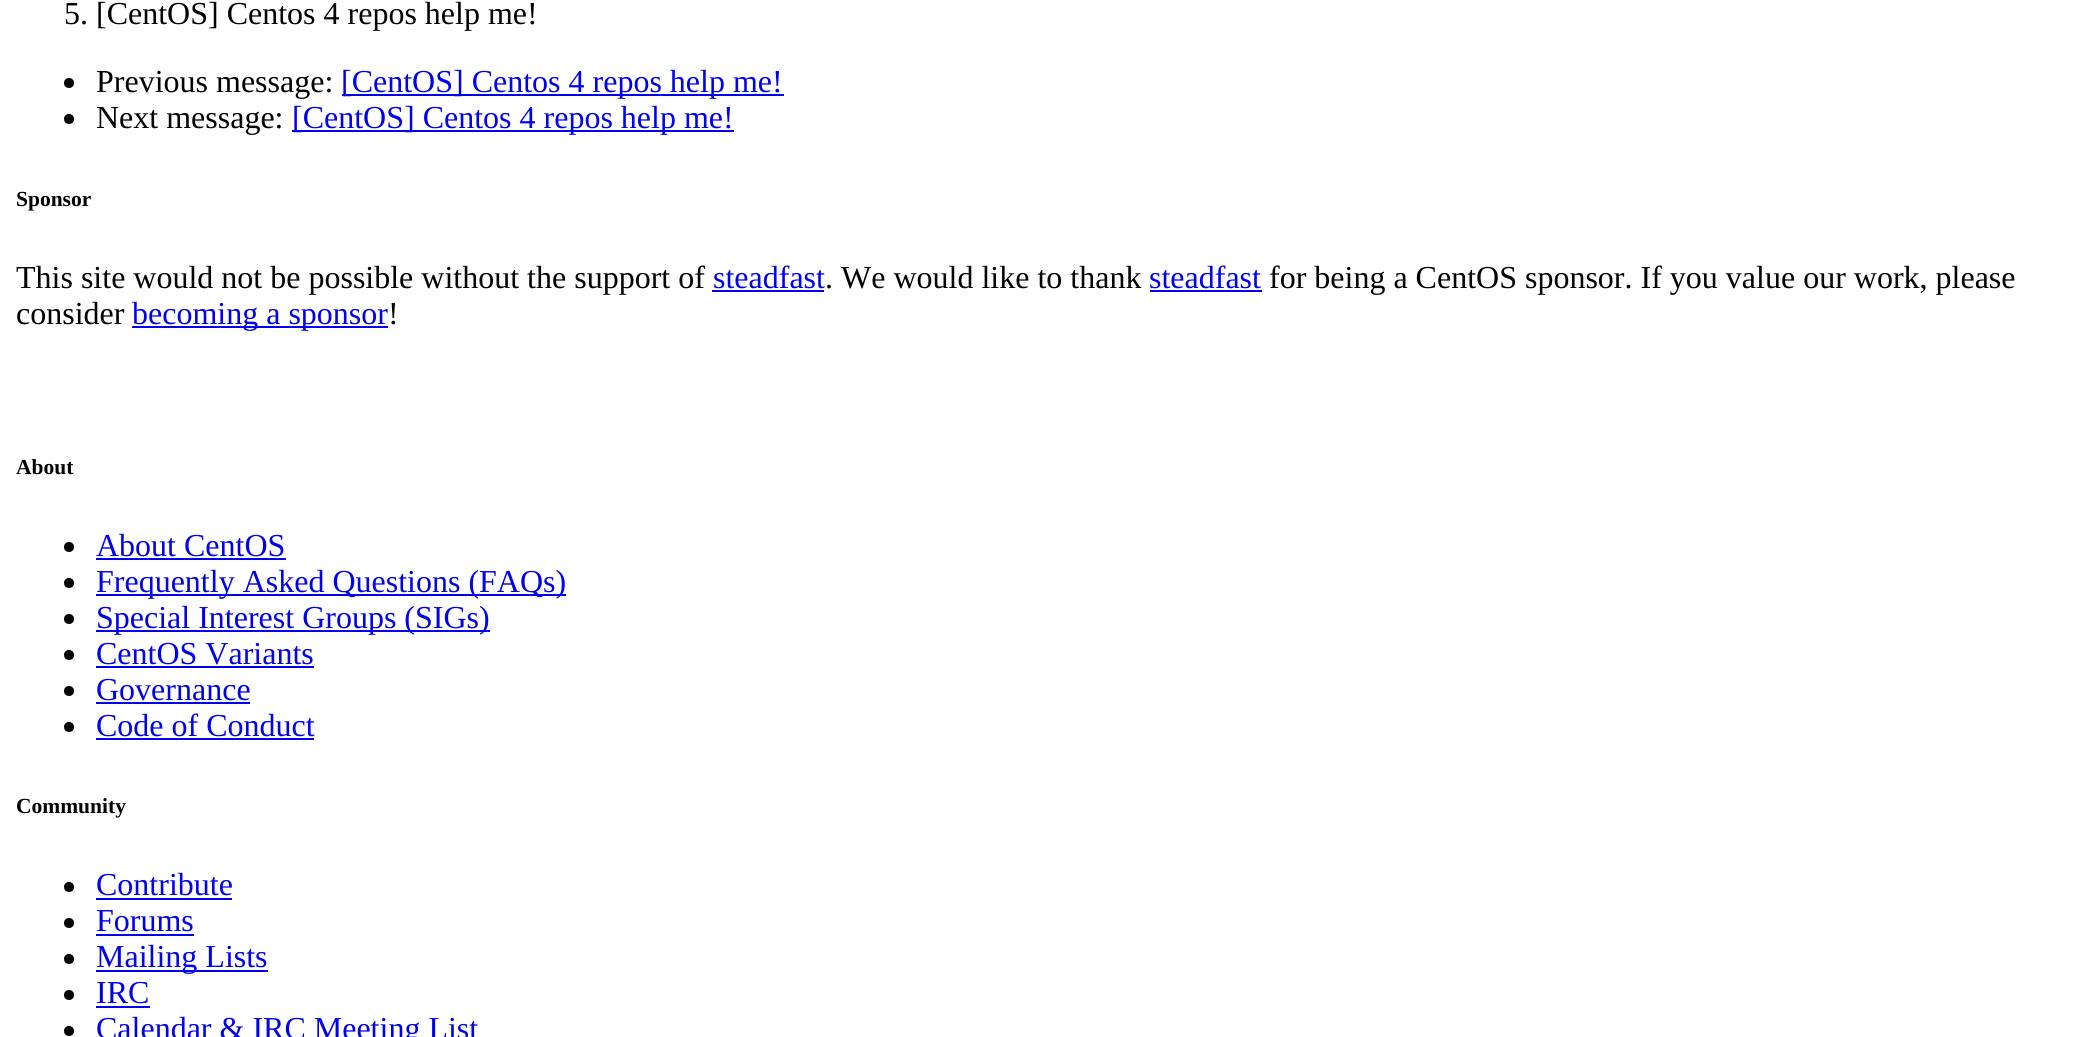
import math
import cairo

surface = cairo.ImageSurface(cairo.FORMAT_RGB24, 2084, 1037)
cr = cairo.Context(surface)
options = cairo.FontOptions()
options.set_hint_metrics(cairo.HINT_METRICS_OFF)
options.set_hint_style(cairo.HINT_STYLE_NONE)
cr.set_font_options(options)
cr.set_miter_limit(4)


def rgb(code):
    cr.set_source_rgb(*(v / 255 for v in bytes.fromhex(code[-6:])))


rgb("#ffffff")
cr.paint()
rgb("#000000")
cr.arc(69, 83, 5, 0, 2 * math.pi)
cr.fill()
rgb("#0000ee")
cr.rectangle(342, 94, 442, 2)
cr.fill()
rgb("#000000")
cr.arc(69, 119, 5, 0, 2 * math.pi)
cr.fill()
for x, y, w, h, color in [
    (292, 130, 442, 2, "#0000ee"),
    (712, 290, 112, 2, "#0000ee"),
    (1150, 290, 112, 2, "#0000ee"),
    (132, 326, 256, 2, "#0000ee"),
]:
    rgb(color)
    cr.rectangle(x, y, w, h)
    cr.fill()
rgb("#000000")
cr.arc(69, 547, 5, 0, 2 * math.pi)
cr.fill()
rgb("#0000ee")
cr.rectangle(96, 558, 190, 2)
cr.fill()
rgb("#000000")
cr.arc(69, 583, 5, 0, 2 * math.pi)
cr.fill()
rgb("#0000ee")
cr.rectangle(96, 594, 470, 2)
cr.fill()
rgb("#000000")
cr.arc(69, 619, 5, 0, 2 * math.pi)
cr.fill()
rgb("#0000ee")
cr.rectangle(96, 630, 394, 2)
cr.fill()
rgb("#000000")
cr.arc(69, 655, 5, 0, 2 * math.pi)
cr.fill()
rgb("#0000ee")
cr.rectangle(96, 666, 218, 2)
cr.fill()
rgb("#000000")
cr.arc(69, 691, 5, 0, 2 * math.pi)
cr.fill()
rgb("#0000ee")
cr.rectangle(96, 702, 154, 2)
cr.fill()
rgb("#000000")
cr.arc(69, 727, 5, 0, 2 * math.pi)
cr.fill()
rgb("#0000ee")
cr.rectangle(96, 738, 218, 2)
cr.fill()
rgb("#000000")
cr.arc(69, 887, 5, 0, 2 * math.pi)
cr.fill()
rgb("#0000ee")
cr.rectangle(96, 898, 136, 2)
cr.fill()
rgb("#000000")
cr.arc(69, 923, 5, 0, 2 * math.pi)
cr.fill()
rgb("#0000ee")
cr.rectangle(96, 934, 98, 2)
cr.fill()
rgb("#000000")
cr.arc(69, 959, 5, 0, 2 * math.pi)
cr.fill()
rgb("#0000ee")
cr.rectangle(96, 970, 172, 2)
cr.fill()
rgb("#000000")
cr.arc(69, 995, 5, 0, 2 * math.pi)
cr.fill()
rgb("#0000ee")
cr.rectangle(96, 1006, 54, 2)
cr.fill()
rgb("#000000")
cr.arc(69, 1031, 5, 0, 2 * math.pi)
cr.fill()
cr.select_font_face("Liberation Serif")
cr.set_font_size(32)
cr.move_to(64, 24)
cr.show_text("5. [CentOS] Centos 4 repos help me!")
cr.move_to(96, 92)
cr.show_text("Previous message:")
rgb("#0000ee")
cr.move_to(341, 92)
cr.show_text("[CentOS] Centos 4 repos help me!")
rgb("#000000")
cr.move_to(96, 128)
cr.show_text("Next message:")
rgb("#0000ee")
cr.move_to(292, 128)
cr.show_text("[CentOS] Centos 4 repos help me!")
cr.select_font_face("Liberation Serif", cairo.FONT_SLANT_NORMAL, cairo.FONT_WEIGHT_BOLD)
cr.set_font_size(21.5)
rgb("#000000")
cr.move_to(16, 206)
cr.show_text("Sponsor")
cr.select_font_face("Liberation Serif")
cr.set_font_size(32)
cr.move_to(16, 288)
cr.show_text("This site would not be possible without the support of")
rgb("#0000ee")
cr.move_to(713, 288)
cr.show_text("steadfast")
rgb("#000000")
cr.move_to(825, 288)
cr.show_text(". We would like to thank")
rgb("#0000ee")
cr.move_to(1149, 288)
cr.show_text("steadfast")
rgb("#000000")
cr.move_to(1269, 288)
cr.show_text("for being a CentOS sponsor. If you value our work, please")
cr.move_to(16, 324)
cr.show_text("consider")
rgb("#0000ee")
cr.move_to(132, 324)
cr.show_text("becoming a sponsor")
rgb("#000000")
cr.move_to(388, 324)
cr.show_text("!")
cr.select_font_face("Liberation Serif", cairo.FONT_SLANT_NORMAL, cairo.FONT_WEIGHT_BOLD)
cr.set_font_size(21.5)
cr.move_to(16, 474)
cr.show_text("About")
cr.select_font_face("Liberation Serif")
cr.set_font_size(32)
rgb("#0000ee")
for x, y, s in [
    (96, 556, "About CentOS"),
    (96, 592, "Frequently Asked Questions (FAQs)"),
    (96, 628, "Special Interest Groups (SIGs)"),
    (96, 664, "CentOS Variants"),
    (96, 700, "Governance"),
    (96, 736, "Code of Conduct"),
]:
    cr.move_to(x, y)
    cr.show_text(s)
cr.select_font_face("Liberation Serif", cairo.FONT_SLANT_NORMAL, cairo.FONT_WEIGHT_BOLD)
cr.set_font_size(21.5)
rgb("#000000")
cr.move_to(16, 813)
cr.show_text("Community")
cr.select_font_face("Liberation Serif")
cr.set_font_size(32)
rgb("#0000ee")
for x, y, s in [
    (96, 895, "Contribute"),
    (96, 931, "Forums"),
    (96, 967, "Mailing Lists"),
    (96, 1003, "IRC"),
    (96, 1039, "Calendar & IRC Meeting List"),
]:
    cr.move_to(x, y)
    cr.show_text(s)
surface.write_to_png("page.png")
